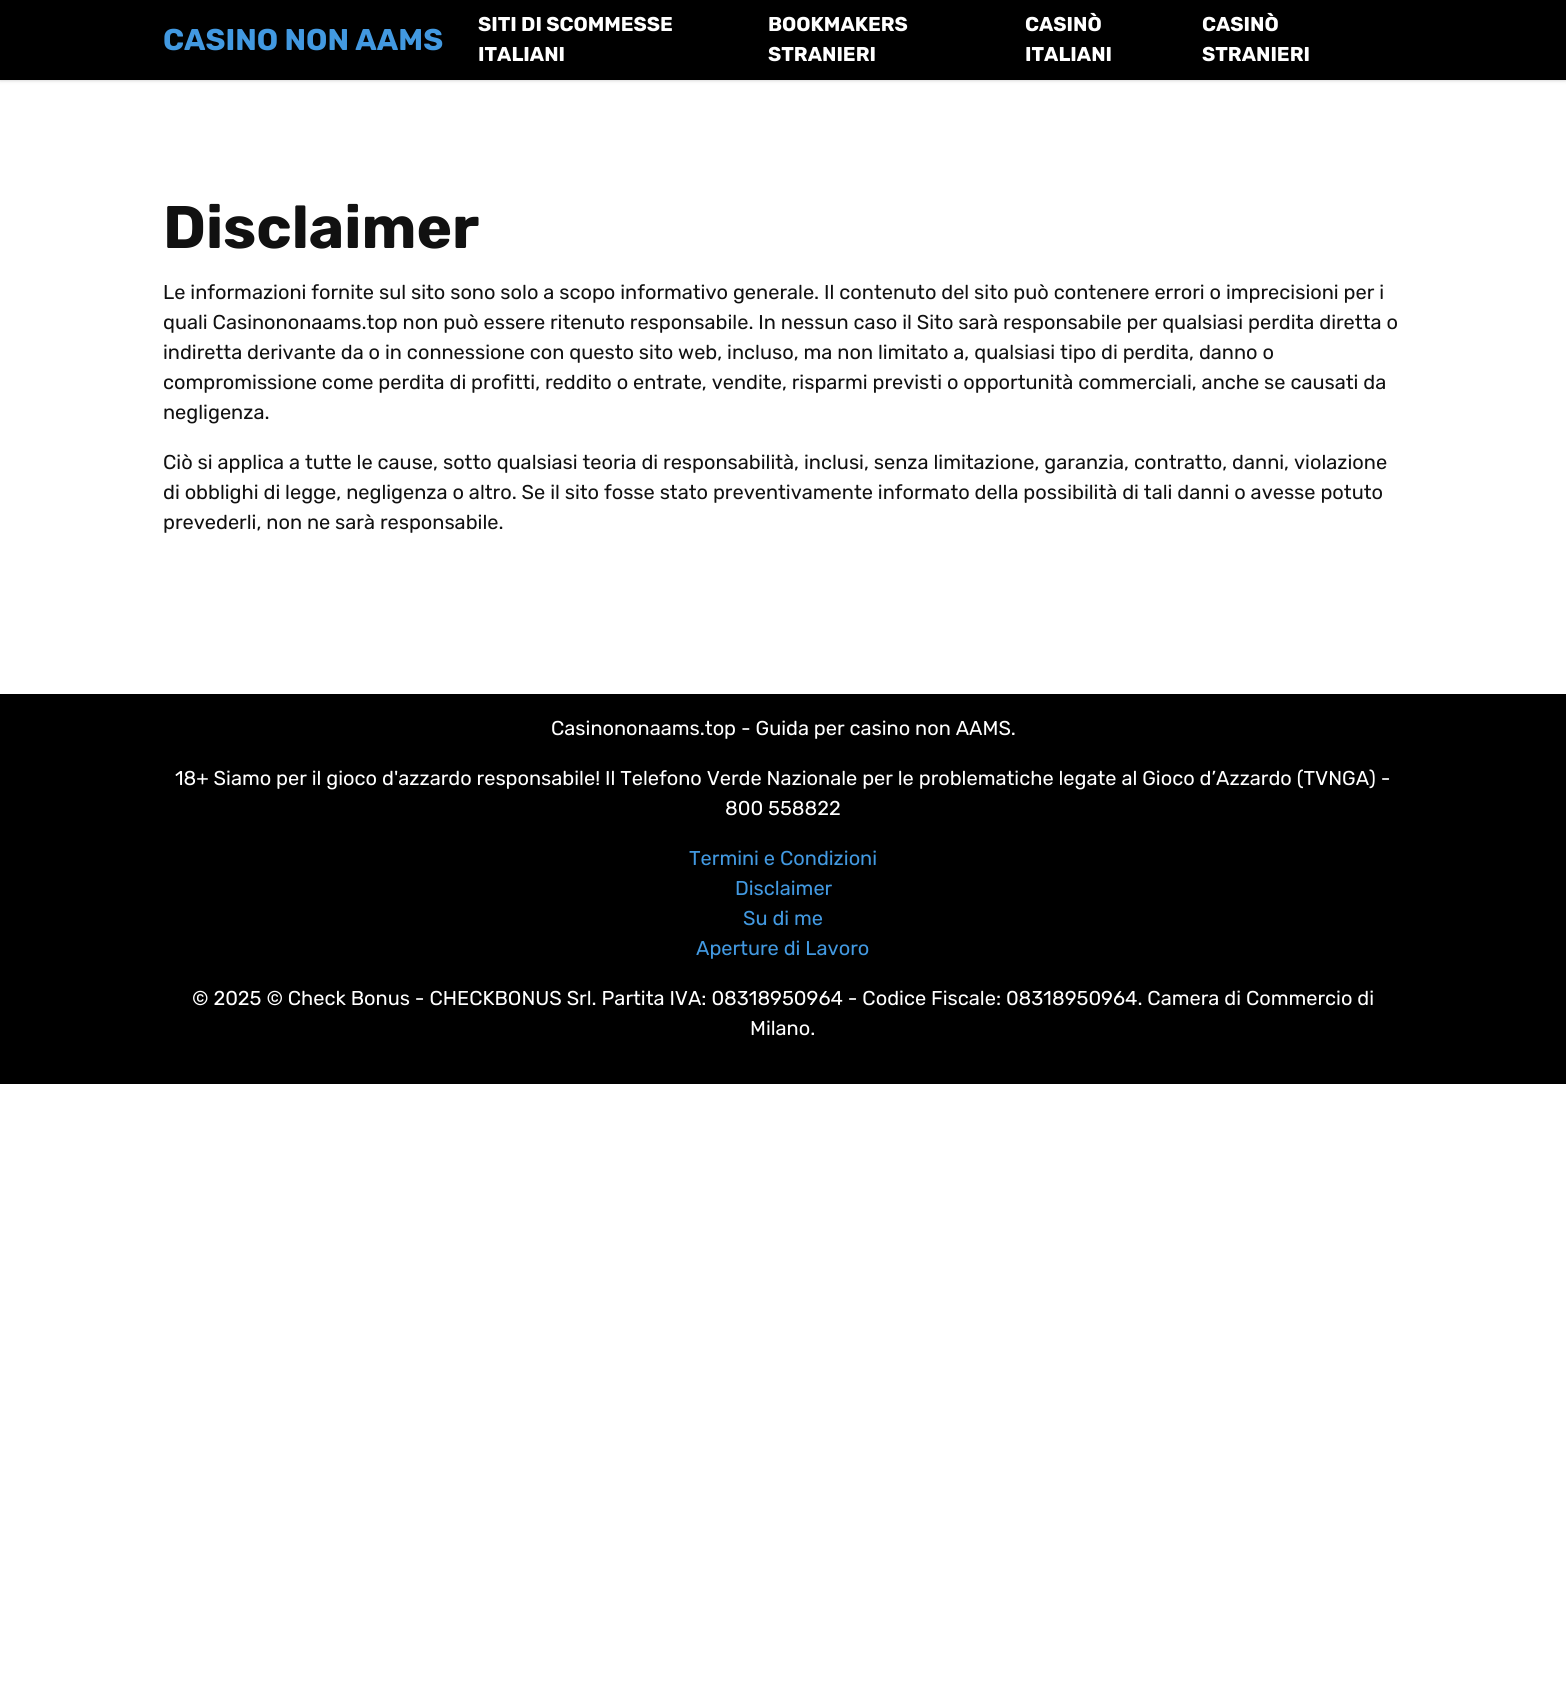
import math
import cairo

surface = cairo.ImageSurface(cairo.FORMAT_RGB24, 1566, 1708)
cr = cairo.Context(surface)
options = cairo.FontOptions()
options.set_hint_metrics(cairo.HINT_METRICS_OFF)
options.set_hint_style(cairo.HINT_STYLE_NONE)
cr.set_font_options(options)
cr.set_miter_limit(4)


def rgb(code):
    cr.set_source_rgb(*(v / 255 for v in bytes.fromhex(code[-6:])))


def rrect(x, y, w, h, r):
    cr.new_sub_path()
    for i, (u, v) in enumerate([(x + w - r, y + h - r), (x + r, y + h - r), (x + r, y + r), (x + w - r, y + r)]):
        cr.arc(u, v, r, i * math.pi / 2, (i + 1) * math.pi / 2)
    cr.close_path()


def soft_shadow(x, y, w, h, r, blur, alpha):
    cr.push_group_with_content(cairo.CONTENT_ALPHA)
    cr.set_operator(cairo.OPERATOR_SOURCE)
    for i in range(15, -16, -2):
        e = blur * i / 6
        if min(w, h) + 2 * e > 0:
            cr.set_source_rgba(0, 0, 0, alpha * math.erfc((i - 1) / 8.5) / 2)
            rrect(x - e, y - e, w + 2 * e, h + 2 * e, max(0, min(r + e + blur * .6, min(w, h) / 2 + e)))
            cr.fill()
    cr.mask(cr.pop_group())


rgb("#ffffff")
cr.paint()
rgb("#000000")
soft_shadow(0, 1, 1566, 80, 0, 1, 0.06)
soft_shadow(0, 1, 1566, 80, 0, 2, 0.1)
rgb("#000000")
cr.rectangle(0, 0, 1566, 80)
cr.fill()
cr.rectangle(0, 694, 1566, 390)
cr.fill()
cr.select_font_face("Rubik", cairo.FONT_SLANT_NORMAL, cairo.FONT_WEIGHT_BOLD)
cr.set_font_size(30)
rgb("#4299e1")
cr.move_to(163, 50)
cr.show_text("CASINO NON AAMS")
cr.set_font_size(20)
rgb("#ffffff")
for x, y, s in [
    (478, 31, "SITI DI SCOMMESSE"),
    (478, 61, "ITALIANI"),
    (768, 31, "BOOKMAKERS"),
    (768, 61, "STRANIERI"),
    (1025, 31, "CASINÒ"),
    (1025, 61, "ITALIANI"),
    (1202, 31, "CASINÒ"),
    (1202, 61, "STRANIERI"),
]:
    cr.move_to(x, y)
    cr.show_text(s)
cr.set_font_size(60)
rgb("#111111")
cr.move_to(163, 248)
cr.show_text("Disclaimer")
cr.select_font_face("Rubik")
cr.set_font_size(20)
for x, y, s in [
    (163, 299, "Le informazioni fornite sul sito sono solo a scopo informativo generale. Il contenuto del sito può contenere errori o imprecisioni per i"),
    (163, 329, "quali Casinononaams.top non può essere ritenuto responsabile. In nessun caso il Sito sarà responsabile per qualsiasi perdita diretta o"),
    (163, 359, "indiretta derivante da o in connessione con questo sito web, incluso, ma non limitato a, qualsiasi tipo di perdita, danno o"),
    (163, 389, "compromissione come perdita di profitti, reddito o entrate, vendite, risparmi previsti o opportunità commerciali, anche se causati da"),
    (163, 419, "negligenza."),
    (163, 469, "Ciò si applica a tutte le cause, sotto qualsiasi teoria di responsabilità, inclusi, senza limitazione, garanzia, contratto, danni, violazione"),
    (163, 499, "di obblighi di legge, negligenza o altro. Se il sito fosse stato preventivamente informato della possibilità di tali danni o avesse potuto"),
    (163, 529, "prevederli, non ne sarà responsabile."),
]:
    cr.move_to(x, y)
    cr.show_text(s)
rgb("#ffffff")
for x, y, s in [
    (551, 735, "Casinononaams.top - Guida per casino non AAMS."),
    (175, 785, "18+ Siamo per il gioco d'azzardo responsabile! Il Telefono Verde Nazionale per le problematiche legate al Gioco d’Azzardo (TVNGA) -"),
    (725, 815, "800 558822"),
]:
    cr.move_to(x, y)
    cr.show_text(s)
rgb("#4299e1")
for x, y, s in [
    (689, 865, "Termini e Condizioni"),
    (735, 895, "Disclaimer"),
    (743, 925, "Su di me"),
    (696, 955, "Aperture di Lavoro"),
]:
    cr.move_to(x, y)
    cr.show_text(s)
rgb("#ffffff")
cr.move_to(192, 1005)
cr.show_text("© 2025 © Check Bonus - CHECKBONUS Srl. Partita IVA: 08318950964 - Codice Fiscale: 08318950964. Camera di Commercio di")
cr.move_to(750, 1035)
cr.show_text("Milano.")
surface.write_to_png("page.png")
